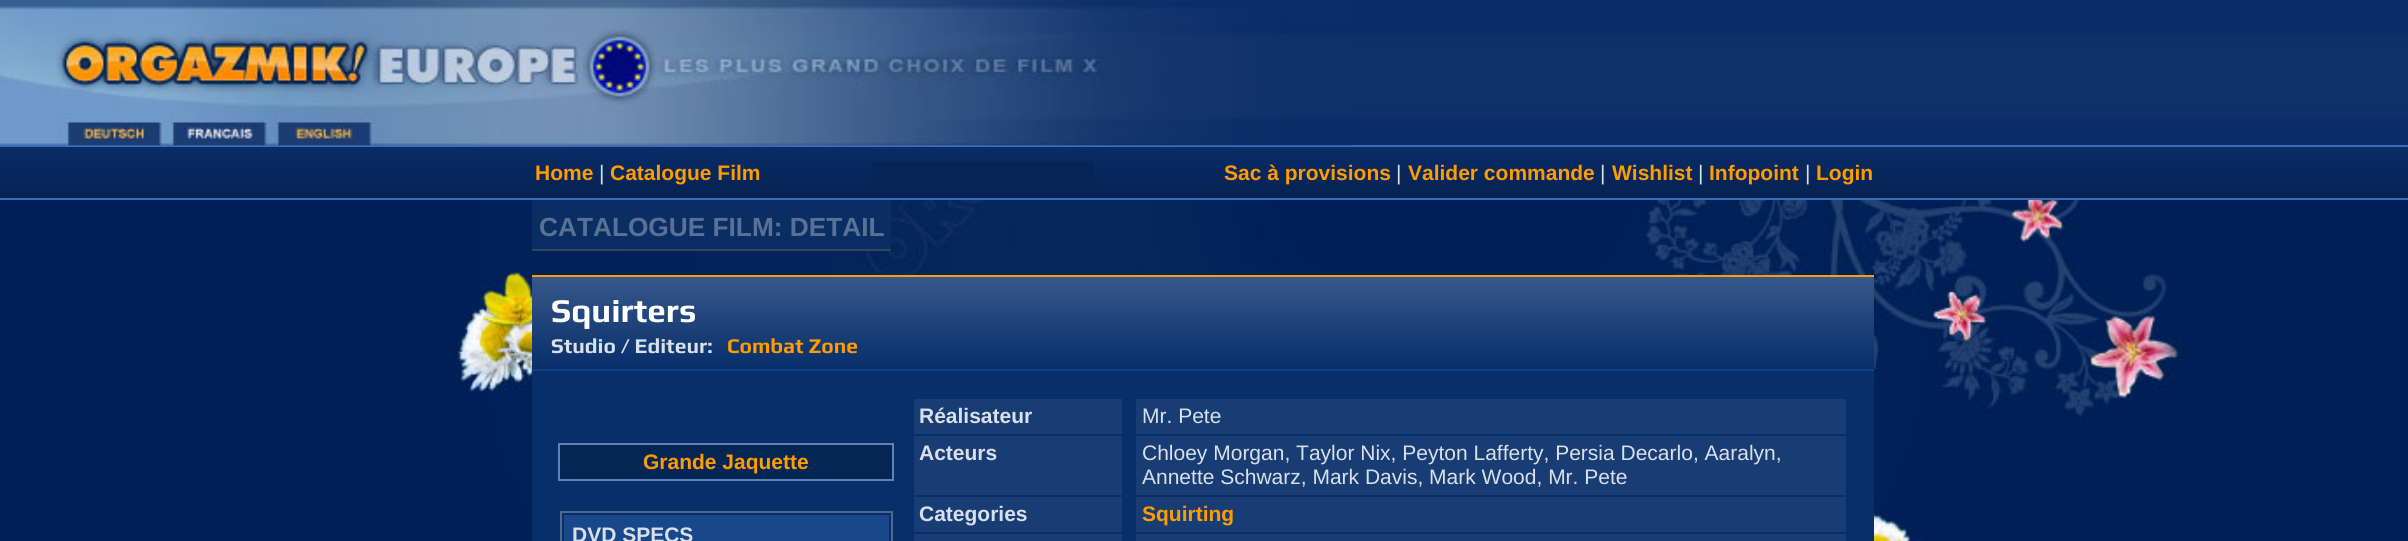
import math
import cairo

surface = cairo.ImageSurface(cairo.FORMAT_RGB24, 2408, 541)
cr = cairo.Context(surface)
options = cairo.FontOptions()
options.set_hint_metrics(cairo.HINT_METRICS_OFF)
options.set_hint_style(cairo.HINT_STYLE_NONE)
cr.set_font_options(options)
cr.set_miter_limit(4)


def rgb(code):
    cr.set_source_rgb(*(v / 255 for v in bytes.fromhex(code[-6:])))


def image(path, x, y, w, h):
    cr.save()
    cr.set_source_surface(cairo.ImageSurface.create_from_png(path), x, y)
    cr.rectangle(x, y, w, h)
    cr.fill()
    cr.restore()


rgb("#002058")
cr.paint()
image("img/1.png", 452, 200, 1735, 341)
image("img/2.png", 1351, 0, 1057, 145)
rgb("#3d6bbb")
cr.rectangle(0, 145, 2408, 2)
cr.fill()
image("img/3.png", 0, 0, 1351, 146)
gradient = cairo.LinearGradient(0, 147, 0, 198)
gradient.add_color_stop_rgba(0, 0.039, 0.176, 0.404, 1)
gradient.add_color_stop_rgba(1, 0.024, 0.133, 0.322, 1)
cr.set_source(gradient)
cr.rectangle(0, 147, 2408, 51)
cr.fill()
for x, y, w, h, color in [
    (0, 198, 2408, 2, "#3d6bbb"),
    (872, 161, 222, 21, "#072456"),
    (532, 200, 359, 49, "#0a2e63"),
    (532, 249, 359, 2, "#35455e"),
    (532, 275, 1342, 2, "#ff9c00"),
    (532, 277, 1342, 1, "#355789"),
]:
    rgb(color)
    cr.rectangle(x, y, w, h)
    cr.fill()
gradient = cairo.LinearGradient(532, 278, 532, 369)
gradient.add_color_stop_rgba(0, 0.212, 0.341, 0.541, 1)
gradient.add_color_stop_rgba(1, 0.027, 0.184, 0.416, 1)
cr.set_source(gradient)
cr.rectangle(532, 278, 1342, 91)
cr.fill()
rgb("#134185")
cr.rectangle(532, 369, 1342, 2)
cr.fill()
rgb("#082f6a")
cr.rectangle(532, 371, 1342, 9)
cr.fill()
cr.set_source_rgba(0.031, 0.173, 0.408, 0.25)
cr.rectangle(1874, 371, 1, 8)
cr.fill()
rgb("#072f69")
cr.rectangle(532, 380, 1342, 14)
cr.rectangle(532, 394, 1342, 147)
cr.fill()
rgb("#052655")
cr.rectangle(559, 444, 334, 36)
cr.fill_preserve()
rgb("#6082b5")
cr.stroke()
cr.rectangle(561, 512, 331, 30)
rgb("#4f688e")
cr.stroke()
for x, y, w, h, color in [
    (564, 515, 325, 26, "#18488b"),
    (914, 399, 208, 35, "#183d74"),
    (1136, 399, 710, 35, "#183d74"),
    (914, 436, 208, 59, "#183d74"),
    (1136, 436, 710, 59, "#183d74"),
    (914, 497, 208, 35, "#183d74"),
    (1136, 497, 710, 35, "#183d74"),
    (914, 534, 208, 7, "#183d74"),
    (1136, 534, 710, 7, "#183d74"),
]:
    rgb(color)
    cr.rectangle(x, y, w, h)
    cr.fill()
cr.select_font_face("Liberation Sans", cairo.FONT_SLANT_NORMAL, cairo.FONT_WEIGHT_BOLD)
cr.set_font_size(21)
rgb("#ff9c00")
cr.move_to(535, 180)
cr.show_text("Home")
cr.select_font_face("Liberation Sans")
rgb("#d9e0ea")
cr.move_to(599, 180)
cr.show_text("|")
cr.select_font_face("Liberation Sans", cairo.FONT_SLANT_NORMAL, cairo.FONT_WEIGHT_BOLD)
rgb("#ff9c00")
cr.move_to(610, 180)
cr.show_text("Catalogue Film")
cr.move_to(1224, 180)
cr.show_text("Sac à provisions")
cr.select_font_face("Liberation Sans")
rgb("#d9e0ea")
cr.move_to(1396, 180)
cr.show_text("|")
cr.select_font_face("Liberation Sans", cairo.FONT_SLANT_NORMAL, cairo.FONT_WEIGHT_BOLD)
rgb("#ff9c00")
cr.move_to(1408, 180)
cr.show_text("Valider commande")
cr.select_font_face("Liberation Sans")
rgb("#d9e0ea")
cr.move_to(1600, 180)
cr.show_text("|")
cr.select_font_face("Liberation Sans", cairo.FONT_SLANT_NORMAL, cairo.FONT_WEIGHT_BOLD)
rgb("#ff9c00")
cr.move_to(1612, 180)
cr.show_text("Wishlist")
cr.select_font_face("Liberation Sans")
rgb("#d9e0ea")
cr.move_to(1698, 180)
cr.show_text("|")
cr.select_font_face("Liberation Sans", cairo.FONT_SLANT_NORMAL, cairo.FONT_WEIGHT_BOLD)
rgb("#ff9c00")
cr.move_to(1709, 180)
cr.show_text("Infopoint")
cr.select_font_face("Liberation Sans")
rgb("#d9e0ea")
cr.move_to(1805, 180)
cr.show_text("|")
cr.select_font_face("Liberation Sans", cairo.FONT_SLANT_NORMAL, cairo.FONT_WEIGHT_BOLD)
rgb("#ff9c00")
cr.move_to(1816, 180)
cr.show_text("Login")
cr.set_font_size(26.25)
rgb("#597195")
cr.move_to(539, 236)
cr.show_text("CATALOGUE FILM: DETAIL")
cr.select_font_face("Play", cairo.FONT_SLANT_NORMAL, cairo.FONT_WEIGHT_BOLD)
cr.set_font_size(33.25)
rgb("#ffffff")
cr.move_to(551, 322)
cr.show_text("Squirters")
cr.set_font_size(21)
rgb("#d9e0ea")
cr.move_to(551, 353)
cr.show_text("Studio / Editeur:")
rgb("#ff9c00")
cr.move_to(727, 353)
cr.show_text("Combat Zone")
cr.select_font_face("Liberation Sans", cairo.FONT_SLANT_NORMAL, cairo.FONT_WEIGHT_BOLD)
cr.move_to(643, 469)
cr.show_text("Grande Jaquette")
rgb("#d9e0ea")
cr.move_to(572, 542)
cr.show_text("DVD SPECS")
cr.move_to(919, 423)
cr.show_text("Réalisateur")
cr.select_font_face("Liberation Sans")
cr.move_to(1142, 423)
cr.show_text("Mr. Pete")
cr.select_font_face("Liberation Sans", cairo.FONT_SLANT_NORMAL, cairo.FONT_WEIGHT_BOLD)
cr.move_to(919, 460)
cr.show_text("Acteurs")
cr.select_font_face("Liberation Sans")
cr.move_to(1142, 460)
cr.show_text("Chloey Morgan, Taylor Nix, Peyton Lafferty, Persia Decarlo, Aaralyn,")
cr.move_to(1142, 484)
cr.show_text("Annette Schwarz, Mark Davis, Mark Wood, Mr. Pete")
cr.select_font_face("Liberation Sans", cairo.FONT_SLANT_NORMAL, cairo.FONT_WEIGHT_BOLD)
cr.move_to(919, 521)
cr.show_text("Categories")
rgb("#ff9c00")
cr.move_to(1142, 521)
cr.show_text("Squirting")
surface.write_to_png("page.png")
